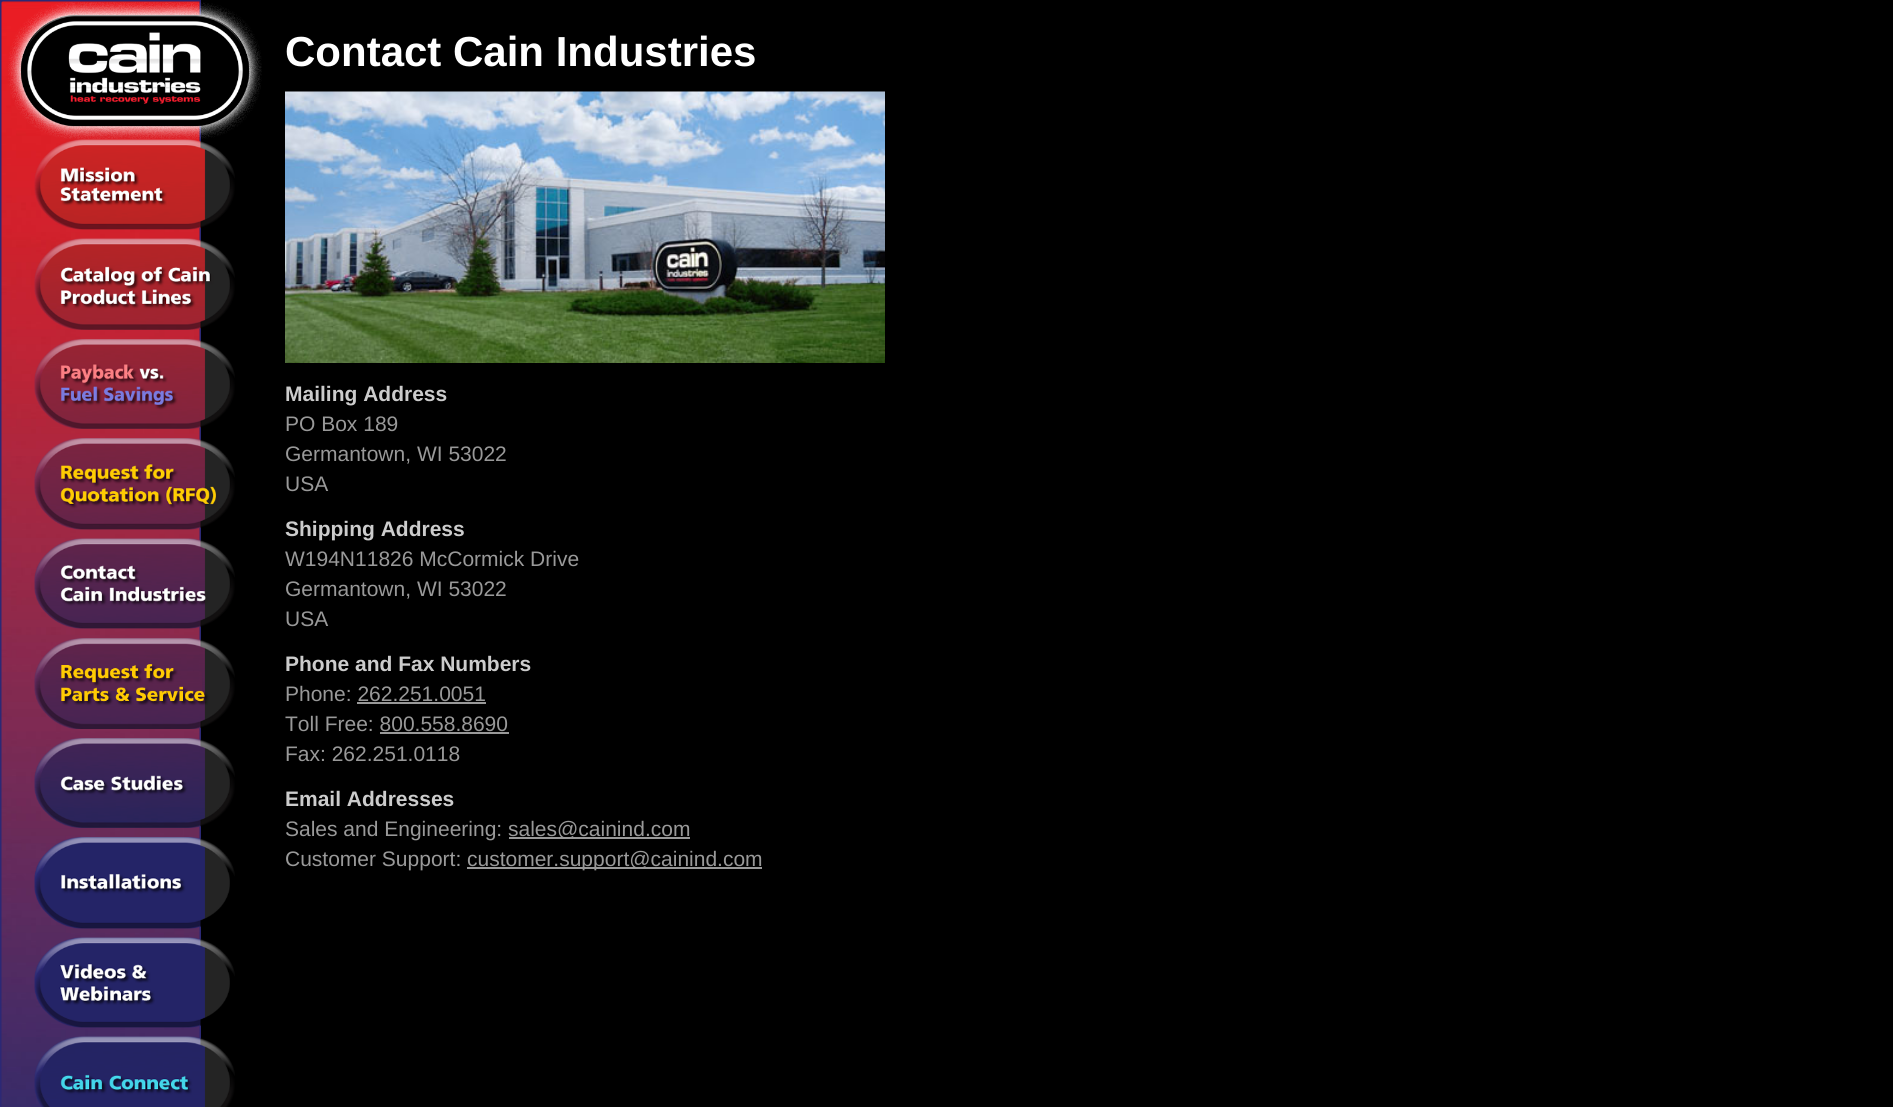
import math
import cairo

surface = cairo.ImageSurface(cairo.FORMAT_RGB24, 1893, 1107)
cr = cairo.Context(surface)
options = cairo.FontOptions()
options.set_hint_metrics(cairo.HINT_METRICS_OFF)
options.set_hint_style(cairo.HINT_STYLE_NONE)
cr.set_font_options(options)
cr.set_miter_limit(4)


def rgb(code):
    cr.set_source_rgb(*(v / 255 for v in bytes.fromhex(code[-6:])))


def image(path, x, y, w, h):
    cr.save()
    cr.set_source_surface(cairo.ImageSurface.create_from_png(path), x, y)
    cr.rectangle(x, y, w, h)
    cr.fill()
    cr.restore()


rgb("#000000")
cr.paint()
rgb("#2c2875")
cr.rectangle(0, 0, 201, 1107)
cr.fill()
image("img/1.png", 1, 1, 199, 1106)
image("img/2.png", 8, 2, 254, 137)
image("img/3.png", 34, 139, 201, 91)
image("img/4.png", 34, 238, 201, 92)
image("img/5.png", 34, 339, 201, 90)
image("img/6.png", 34, 438, 201, 92)
image("img/7.png", 34, 538, 201, 91)
image("img/8.png", 34, 638, 201, 91)
image("img/9.png", 34, 738, 201, 90)
image("img/10.png", 34, 837, 201, 92)
image("img/11.png", 34, 937, 201, 91)
image("img/12.png", 34, 1036, 201, 71)
image("img/13.png", 285, 91, 600, 272)
for x, y, w, h, color in [
    (357, 702, 129, 2, "#999999"),
    (380, 732, 129, 2, "#999999"),
    (509, 837, 181, 2, "#999999"),
    (467, 867, 295, 2, "#999999"),
]:
    rgb(color)
    cr.rectangle(x, y, w, h)
    cr.fill()
cr.select_font_face("Liberation Sans", cairo.FONT_SLANT_NORMAL, cairo.FONT_WEIGHT_BOLD)
cr.set_font_size(42)
rgb("#ffffff")
cr.move_to(285, 66)
cr.show_text("Contact Cain Industries")
cr.set_font_size(21)
rgb("#cccccc")
cr.move_to(285, 401)
cr.show_text("Mailing Address")
cr.select_font_face("Liberation Sans")
rgb("#999999")
for x, y, s in [
    (285, 431, "PO Box 189"),
    (285, 461, "Germantown, WI 53022"),
    (285, 491, "USA"),
]:
    cr.move_to(x, y)
    cr.show_text(s)
cr.select_font_face("Liberation Sans", cairo.FONT_SLANT_NORMAL, cairo.FONT_WEIGHT_BOLD)
rgb("#cccccc")
cr.move_to(285, 536)
cr.show_text("Shipping Address")
cr.select_font_face("Liberation Sans")
rgb("#999999")
for x, y, s in [
    (285, 566, "W194N11826 McCormick Drive"),
    (285, 596, "Germantown, WI 53022"),
    (285, 626, "USA"),
]:
    cr.move_to(x, y)
    cr.show_text(s)
cr.select_font_face("Liberation Sans", cairo.FONT_SLANT_NORMAL, cairo.FONT_WEIGHT_BOLD)
rgb("#cccccc")
cr.move_to(285, 671)
cr.show_text("Phone and Fax Numbers")
cr.select_font_face("Liberation Sans")
rgb("#999999")
for x, y, s in [
    (285, 701, "Phone: 262.251.0051"),
    (285, 731, "Toll Free: 800.558.8690"),
    (285, 761, "Fax: 262.251.0118"),
]:
    cr.move_to(x, y)
    cr.show_text(s)
cr.select_font_face("Liberation Sans", cairo.FONT_SLANT_NORMAL, cairo.FONT_WEIGHT_BOLD)
rgb("#cccccc")
cr.move_to(285, 806)
cr.show_text("Email Addresses")
cr.select_font_face("Liberation Sans")
rgb("#999999")
for x, y, s in [
    (285, 836, "Sales and Engineering:"),
    (508, 836, "sales@cainind.com"),
    (285, 866, "Customer Support:"),
    (467, 866, "customer.support@cainind.com"),
]:
    cr.move_to(x, y)
    cr.show_text(s)
surface.write_to_png("page.png")
